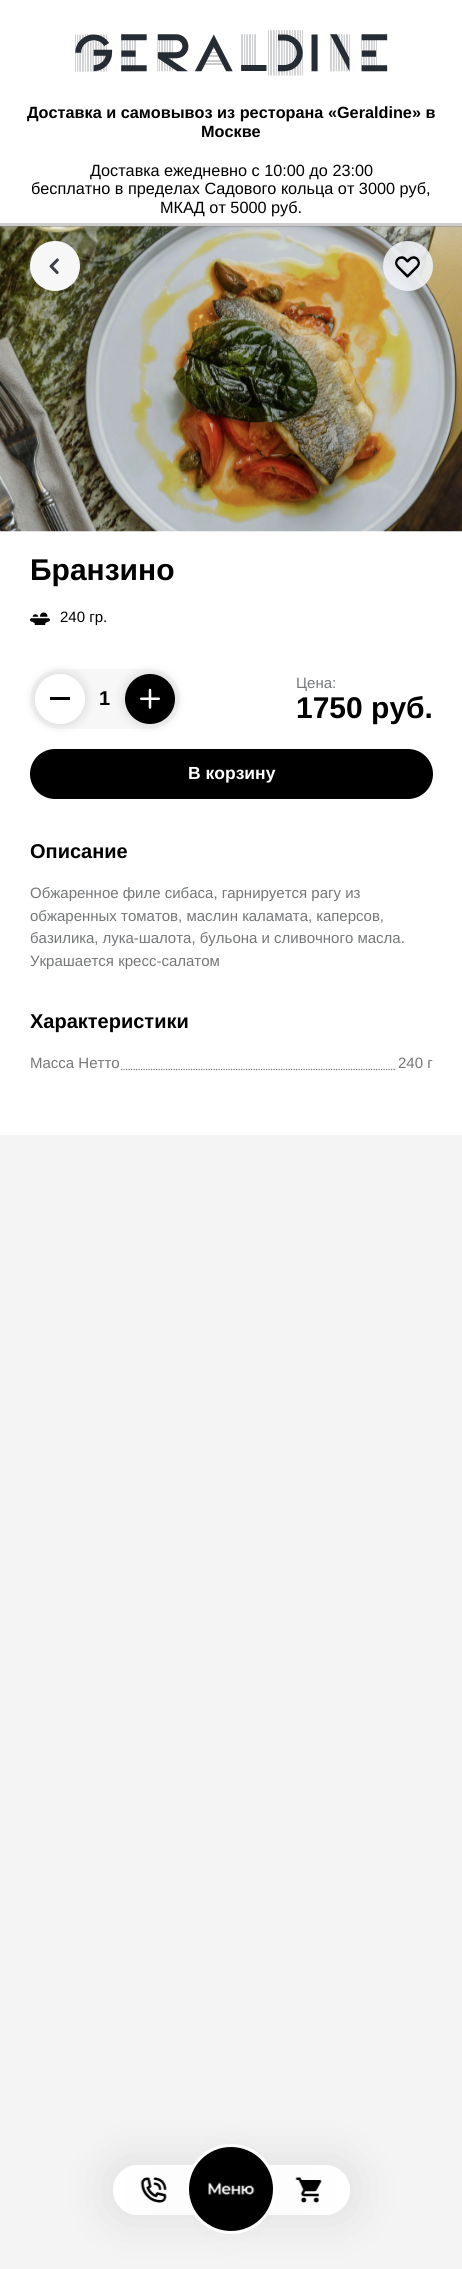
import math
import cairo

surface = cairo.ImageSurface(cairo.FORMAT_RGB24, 462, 2269)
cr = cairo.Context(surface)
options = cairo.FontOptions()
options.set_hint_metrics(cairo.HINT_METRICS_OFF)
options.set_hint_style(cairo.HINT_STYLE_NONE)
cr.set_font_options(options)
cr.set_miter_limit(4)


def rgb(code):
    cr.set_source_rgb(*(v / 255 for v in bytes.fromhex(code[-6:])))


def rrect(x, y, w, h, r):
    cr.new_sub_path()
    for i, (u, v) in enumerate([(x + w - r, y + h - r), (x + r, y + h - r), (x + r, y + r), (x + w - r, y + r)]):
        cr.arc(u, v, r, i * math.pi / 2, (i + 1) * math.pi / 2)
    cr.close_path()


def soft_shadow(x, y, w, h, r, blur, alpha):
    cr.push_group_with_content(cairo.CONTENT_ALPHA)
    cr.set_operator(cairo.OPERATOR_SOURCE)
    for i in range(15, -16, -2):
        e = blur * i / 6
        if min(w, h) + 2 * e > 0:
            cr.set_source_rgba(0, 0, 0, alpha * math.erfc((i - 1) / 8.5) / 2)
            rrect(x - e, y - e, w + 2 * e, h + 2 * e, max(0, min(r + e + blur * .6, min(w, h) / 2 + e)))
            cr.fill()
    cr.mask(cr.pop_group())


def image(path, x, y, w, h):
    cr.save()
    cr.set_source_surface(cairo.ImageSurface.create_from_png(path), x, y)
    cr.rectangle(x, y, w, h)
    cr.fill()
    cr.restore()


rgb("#f4f4f4")
cr.paint()
rgb("#ffffff")
cr.rectangle(0, 0, 462, 1135)
cr.fill()
image("img/1.png", 75, 30, 313, 46)
image("img/2.png", 0, 226, 462, 306)
cr.set_source_rgba(0, 0, 0, 0.2)
cr.rectangle(0, 223, 462, 4)
cr.fill()
rgb("#f7f7f7")
cr.arc(55, 266, 25, 0, 2 * math.pi)
cr.fill()
image("img/3.png", 49, 258, 10, 17)
cr.set_source_rgba(0.941, 0.949, 0.965, 0.9)
cr.arc(408, 266, 25, 0, 2 * math.pi)
cr.fill()
image("img/4.png", 395, 256, 25, 22)
image("img/5.png", 30, 612, 20, 13)
rgb("#f7f7f7")
rrect(30, 669, 150, 60, 30)
cr.fill()
rgb("#000000")
soft_shadow(35, 674, 50, 50, 25, 6, 0.15)
rgb("#ffffff")
cr.arc(60, 699, 25, 0, 2 * math.pi)
cr.fill()
rgb("#000000")
cr.rectangle(50, 697, 20, 3)
cr.fill()
rgb("#000000")
soft_shadow(125, 674, 50, 50, 25, 6, 0.15)
rgb("#000000")
cr.arc(150, 699, 25, 0, 2 * math.pi)
cr.fill()
image("img/6.png", 140, 688, 20, 21)
rrect(30, 749, 403, 50, 25)
cr.fill()
cr.new_path()
cr.move_to(121, 1069.5)
cr.line_to(396, 1069.5)
rgb("#747678")
cr.set_line_width(1.2)
cr.set_dash([1.25, 1.25])
cr.stroke()
cr.save()
cr.set_fill_rule(cairo.FILL_RULE_EVEN_ODD)
cr.new_path()
cr.move_to(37, 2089)
cr.line_to(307, 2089)
cr.line_to(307, 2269)
cr.line_to(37, 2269)
cr.close_path()
cr.move_to(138, 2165)
cr.line_to(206, 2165)
cr.curve_to(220, 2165, 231, 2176, 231, 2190)
cr.curve_to(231, 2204, 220, 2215, 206, 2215)
cr.line_to(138, 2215)
cr.curve_to(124, 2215, 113, 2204, 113, 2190)
cr.curve_to(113, 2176, 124, 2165, 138, 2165)
cr.close_path()
cr.clip()
rgb("#000000")
soft_shadow(113, 2165, 118, 50, 25, 25, 0.1)
cr.restore()
gradient = cairo.LinearGradient(113, 2190, 231, 2190)
gradient.add_color_stop_rgba(0, 1, 1, 1, 1)
gradient.add_color_stop_rgba(0.49, 1, 1, 1, 0.8)
gradient.add_color_stop_rgba(1, 1, 1, 1, 1)
cr.set_source(gradient)
rrect(113, 2165, 118, 50, 25)
cr.fill()
image("img/7.png", 140, 2177, 27, 26)
cr.save()
cr.set_fill_rule(cairo.FILL_RULE_EVEN_ODD)
cr.new_path()
cr.move_to(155, 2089)
cr.line_to(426, 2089)
cr.line_to(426, 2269)
cr.line_to(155, 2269)
cr.close_path()
cr.move_to(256, 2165)
cr.line_to(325, 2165)
cr.curve_to(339, 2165, 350, 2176, 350, 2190)
cr.curve_to(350, 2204, 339, 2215, 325, 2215)
cr.line_to(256, 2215)
cr.curve_to(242, 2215, 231, 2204, 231, 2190)
cr.curve_to(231, 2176, 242, 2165, 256, 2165)
cr.close_path()
cr.clip()
rgb("#000000")
soft_shadow(231, 2165, 119, 50, 25, 25, 0.1)
cr.restore()
gradient = cairo.LinearGradient(350, 2190, 231, 2190)
gradient.add_color_stop_rgba(0, 1, 1, 1, 1)
gradient.add_color_stop_rgba(0.49, 1, 1, 1, 0.8)
gradient.add_color_stop_rgba(1, 1, 1, 1, 1)
cr.set_source(gradient)
rrect(231, 2165, 119, 50, 25)
cr.fill()
image("img/8.png", 295, 2177, 27, 26)
rgb("#000000")
cr.arc(231, 2189, 43.5, 0, 2 * math.pi)
cr.fill_preserve()
rgb("#ffffff")
cr.set_line_width(3)
cr.set_dash([])
cr.stroke()
image("img/9.png", 208, 2182, 47, 13)
cr.select_font_face("Liberation Sans", cairo.FONT_SLANT_NORMAL, cairo.FONT_WEIGHT_BOLD)
cr.set_font_size(16.25)
rgb("#000000")
cr.move_to(27, 118)
cr.show_text("Доставка и самовывоз из ресторана «Geraldine» в")
cr.move_to(201, 137)
cr.show_text("Москве")
cr.select_font_face("Liberation Sans")
for x, y, s in [
    (90, 176, "Доставка ежедневно с 10:00 до 23:00"),
    (31, 194, "бесплатно в пределах Садового кольца от 3000 руб,"),
    (160, 213, "МКАД от 5000 руб."),
]:
    cr.move_to(x, y)
    cr.show_text(s)
cr.select_font_face("Liberation Sans", cairo.FONT_SLANT_NORMAL, cairo.FONT_WEIGHT_BOLD)
cr.set_font_size(30)
cr.move_to(30, 580)
cr.show_text("Бранзино")
cr.select_font_face("Liberation Sans")
cr.set_font_size(15)
cr.move_to(60, 622)
cr.show_text("240 гр.")
cr.select_font_face("Liberation Sans", cairo.FONT_SLANT_NORMAL, cairo.FONT_WEIGHT_BOLD)
cr.set_font_size(20)
cr.move_to(99, 705)
cr.show_text("1")
cr.select_font_face("Liberation Sans")
cr.set_font_size(15)
rgb("#747678")
cr.move_to(296, 688)
cr.show_text("Цена:")
cr.select_font_face("Liberation Sans", cairo.FONT_SLANT_NORMAL, cairo.FONT_WEIGHT_BOLD)
cr.set_font_size(30)
rgb("#000000")
cr.move_to(296, 718)
cr.show_text("1750 руб.")
cr.set_font_size(17.5)
rgb("#ffffff")
cr.move_to(188, 779)
cr.show_text("В корзину")
cr.set_font_size(20)
rgb("#000000")
cr.move_to(30, 858)
cr.show_text("Описание")
cr.select_font_face("Liberation Sans")
cr.set_font_size(15)
rgb("#747678")
for x, y, s in [
    (30, 898, "Обжаренное филе сибаса, гарнируется рагу из"),
    (30, 921, "обжаренных томатов, маслин каламата, каперсов,"),
    (30, 943, "базилика, лука-шалота, бульона и сливочного масла."),
    (30, 966, "Украшается кресс-салатом"),
]:
    cr.move_to(x, y)
    cr.show_text(s)
cr.select_font_face("Liberation Sans", cairo.FONT_SLANT_NORMAL, cairo.FONT_WEIGHT_BOLD)
cr.set_font_size(20)
rgb("#000000")
cr.move_to(30, 1028)
cr.show_text("Характеристики")
cr.select_font_face("Liberation Sans")
cr.set_font_size(15)
rgb("#747678")
cr.move_to(30, 1068)
cr.show_text("Масса Нетто")
cr.move_to(398, 1068)
cr.show_text("240 г")
surface.write_to_png("page.png")
